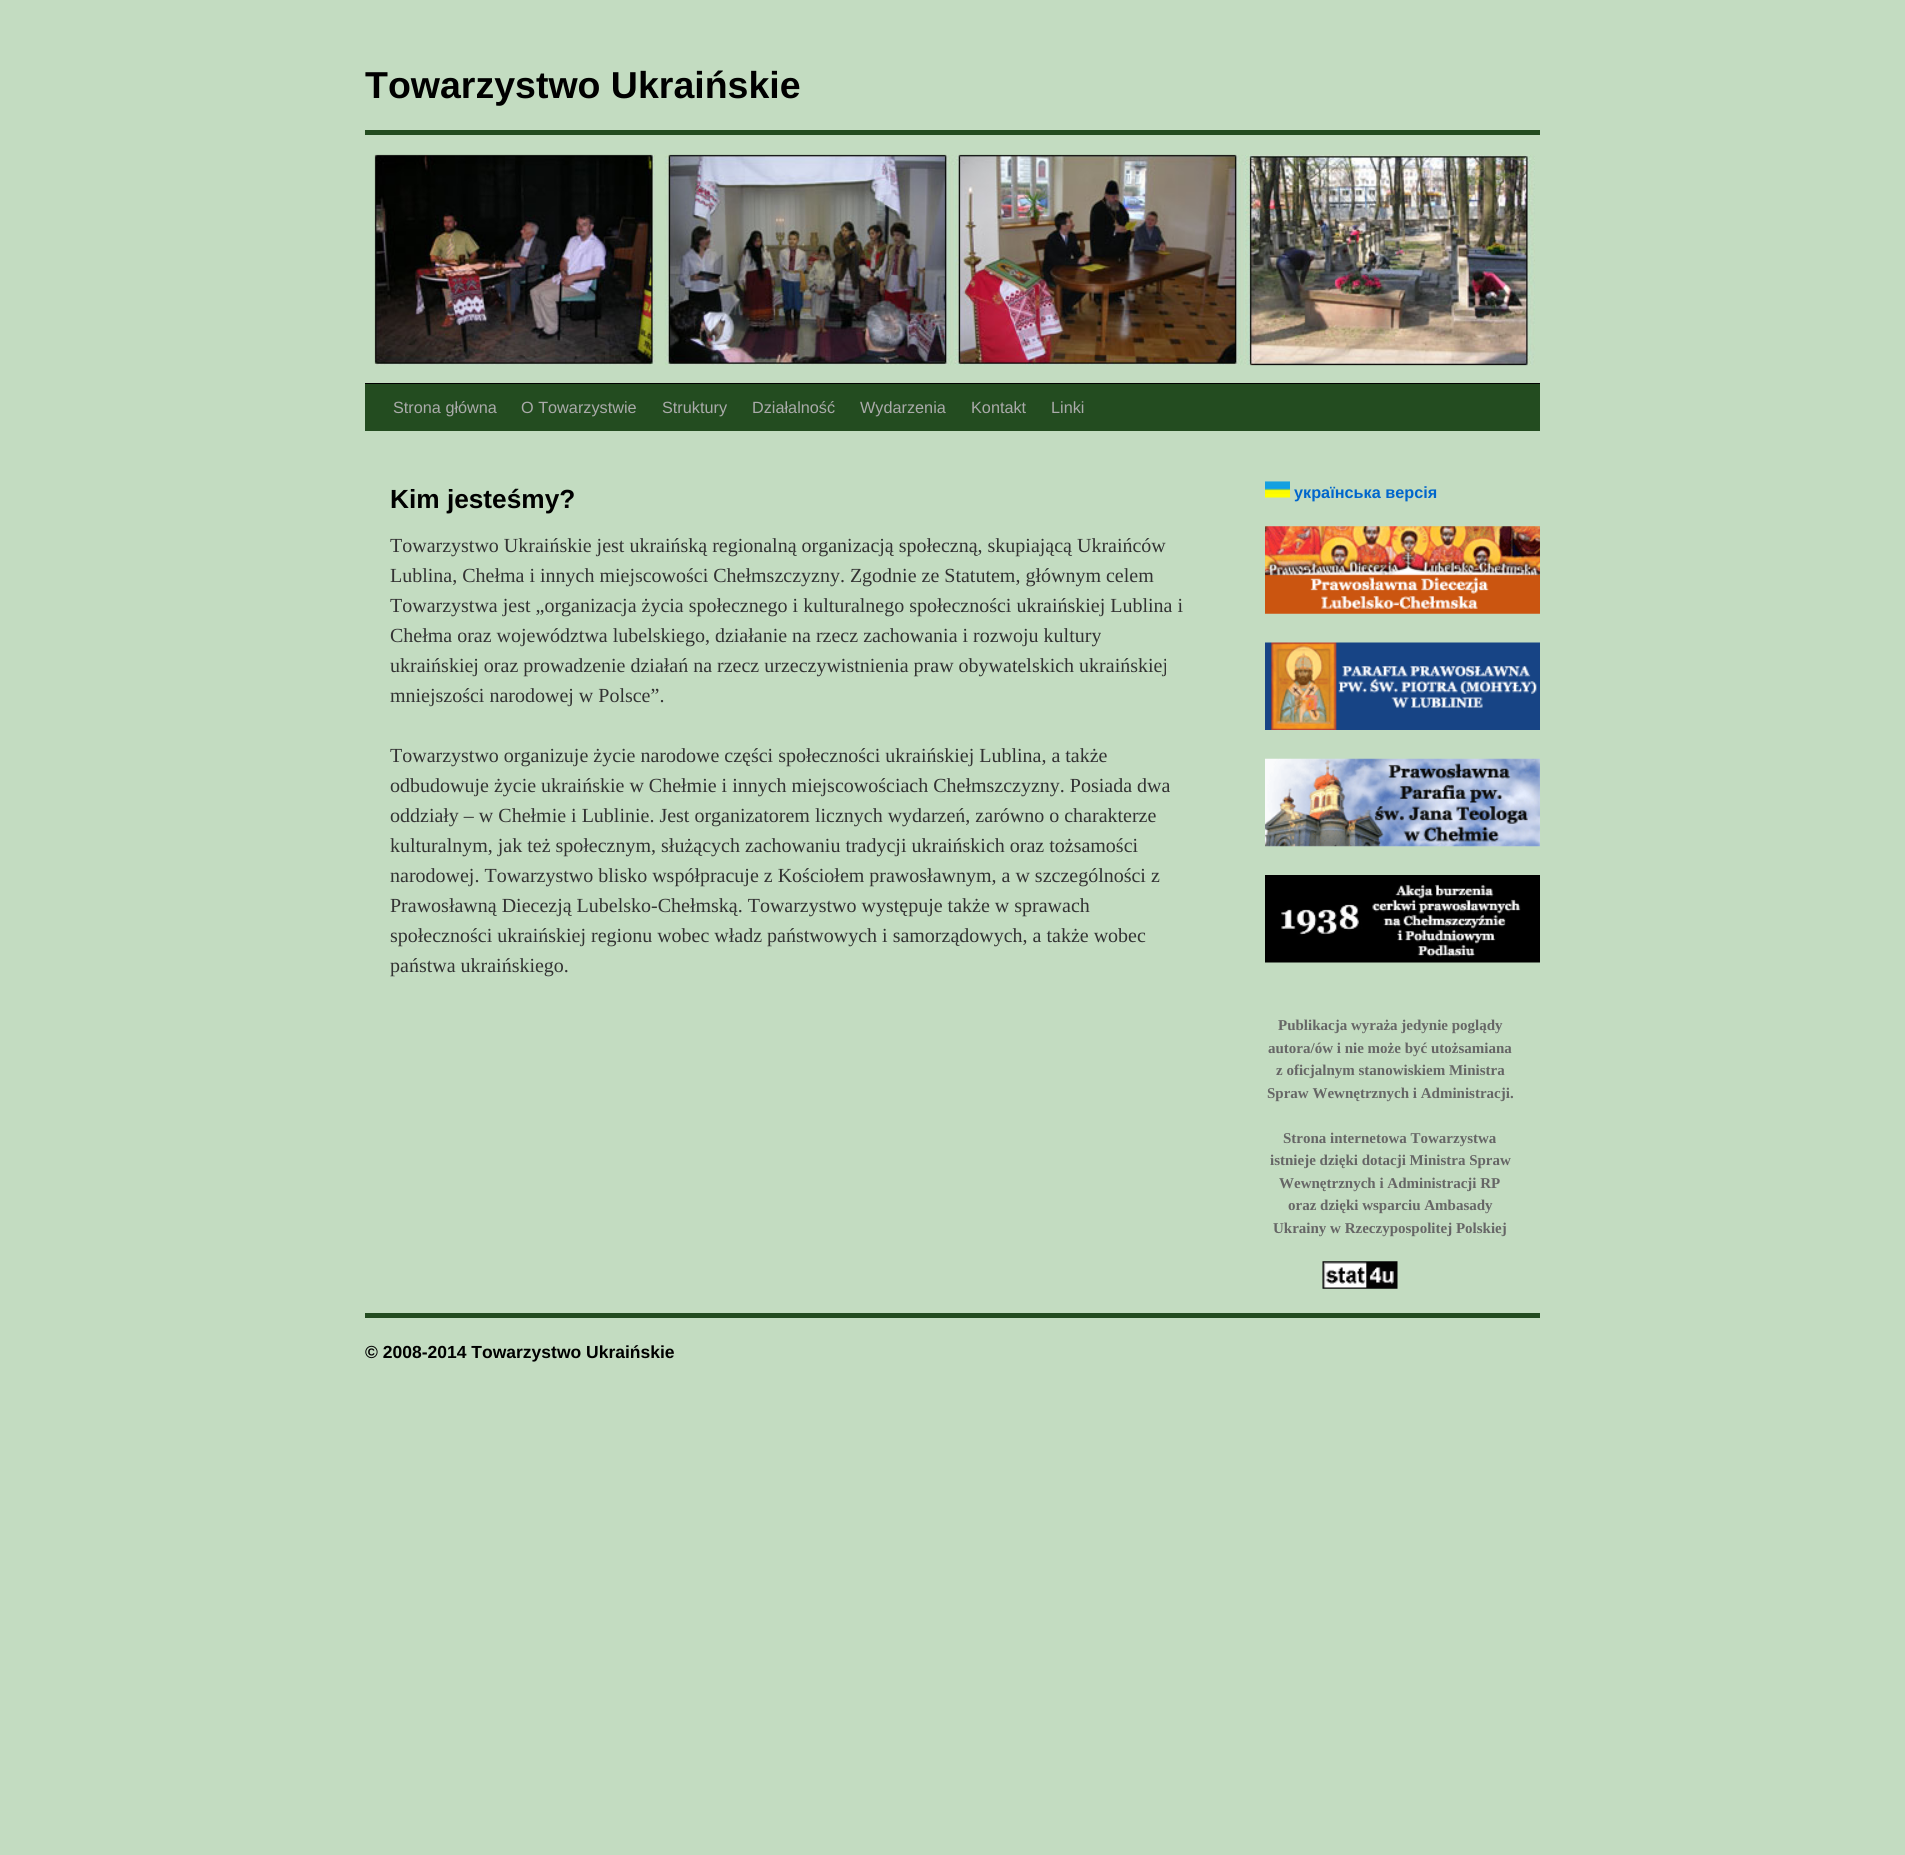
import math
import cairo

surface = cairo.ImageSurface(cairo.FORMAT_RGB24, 1905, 1855)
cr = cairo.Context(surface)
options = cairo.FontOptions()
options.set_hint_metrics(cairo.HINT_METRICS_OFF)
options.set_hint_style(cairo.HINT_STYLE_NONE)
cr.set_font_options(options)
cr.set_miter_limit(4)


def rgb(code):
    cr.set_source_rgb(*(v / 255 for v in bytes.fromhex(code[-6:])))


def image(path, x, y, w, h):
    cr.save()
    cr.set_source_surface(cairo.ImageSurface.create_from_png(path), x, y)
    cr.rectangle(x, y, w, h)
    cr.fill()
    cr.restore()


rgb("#c3dcc1")
cr.paint()
rgb("#234c20")
cr.rectangle(365, 130, 1175, 5)
cr.fill()
rgb("#000000")
cr.rectangle(365, 383, 1175, 1)
cr.fill()
image("img/1.png", 374, 154, 1161, 212)
rgb("#234c20")
cr.rectangle(365, 384, 1175, 47)
cr.fill()
image("img/2.png", 1265, 481, 25, 17)
image("img/3.png", 1265, 526, 275, 88)
image("img/4.png", 1265, 642, 275, 88)
image("img/5.png", 1265, 758, 275, 89)
image("img/6.png", 1265, 875, 275, 88)
image("img/7.png", 1322, 1261, 76, 28)
cr.rectangle(365, 1313, 1175, 5)
cr.fill()
cr.select_font_face("Liberation Sans", cairo.FONT_SLANT_NORMAL, cairo.FONT_WEIGHT_BOLD)
cr.set_font_size(37.5)
rgb("#000000")
cr.move_to(365, 98)
cr.show_text("Towarzystwo Ukraińskie")
cr.select_font_face("Liberation Sans")
cr.set_font_size(16.25)
rgb("#aaaaaa")
for x, y, s in [
    (393, 413, "Strona główna"),
    (521, 413, "O Towarzystwie"),
    (662, 413, "Struktury"),
    (752, 413, "Działalność"),
    (860, 413, "Wydarzenia"),
    (971, 413, "Kontakt"),
    (1051, 413, "Linki"),
]:
    cr.move_to(x, y)
    cr.show_text(s)
cr.select_font_face("Liberation Sans", cairo.FONT_SLANT_NORMAL, cairo.FONT_WEIGHT_BOLD)
cr.set_font_size(26.25)
rgb("#000000")
cr.move_to(390, 508)
cr.show_text("Kim jesteśmy?")
cr.select_font_face("Liberation Serif")
cr.set_font_size(20)
rgb("#333333")
for x, y, s in [
    (390, 552, "Towarzystwo Ukraińskie jest ukraińską regionalną organizacją społeczną, skupiającą Ukraińców"),
    (390, 582, "Lublina, Chełma i innych miejscowości Chełmszczyzny. Zgodnie ze Statutem, głównym celem"),
    (390, 612, "Towarzystwa jest „organizacja życia społecznego i kulturalnego społeczności ukraińskiej Lublina i"),
    (390, 642, "Chełma oraz województwa lubelskiego, działanie na rzecz zachowania i rozwoju kultury"),
    (390, 672, "ukraińskiej oraz prowadzenie działań na rzecz urzeczywistnienia praw obywatelskich ukraińskiej"),
    (390, 702, "mniejszości narodowej w Polsce”."),
    (390, 762, "Towarzystwo organizuje życie narodowe części społeczności ukraińskiej Lublina, a także"),
    (390, 792, "odbudowuje życie ukraińskie w Chełmie i innych miejscowościach Chełmszczyzny. Posiada dwa"),
    (390, 822, "oddziały – w Chełmie i Lublinie. Jest organizatorem licznych wydarzeń, zarówno o charakterze"),
    (390, 852, "kulturalnym, jak też społecznym, służących zachowaniu tradycji ukraińskich oraz tożsamości"),
    (390, 882, "narodowej. Towarzystwo blisko współpracuje z Kościołem prawosławnym, a w szczególności z"),
    (390, 912, "Prawosławną Diecezją Lubelsko-Chełmską. Towarzystwo występuje także w sprawach"),
    (390, 942, "społeczności ukraińskiej regionu wobec władz państwowych i samorządowych, a także wobec"),
    (390, 972, "państwa ukraińskiego."),
]:
    cr.move_to(x, y)
    cr.show_text(s)
cr.select_font_face("Liberation Sans", cairo.FONT_SLANT_NORMAL, cairo.FONT_WEIGHT_BOLD)
cr.set_font_size(16.25)
rgb("#0066cc")
cr.move_to(1294, 498)
cr.show_text("українська версія")
cr.select_font_face("Liberation Serif", cairo.FONT_SLANT_NORMAL, cairo.FONT_WEIGHT_BOLD)
cr.set_font_size(15)
rgb("#666666")
for x, y, s in [
    (1278, 1030, "Publikacja wyraża jedynie poglądy"),
    (1268, 1053, "autora/ów i nie może być utożsamiana"),
    (1276, 1075, "z oficjalnym stanowiskiem Ministra"),
    (1267, 1098, "Spraw Wewnętrznych i Administracji."),
    (1283, 1143, "Strona internetowa Towarzystwa"),
    (1270, 1165, "istnieje dzięki dotacji Ministra Spraw"),
    (1279, 1188, "Wewnętrznych i Administracji RP"),
    (1288, 1210, "oraz dzięki wsparciu Ambasady"),
    (1273, 1233, "Ukrainy w Rzeczypospolitej Polskiej"),
]:
    cr.move_to(x, y)
    cr.show_text(s)
cr.select_font_face("Liberation Sans", cairo.FONT_SLANT_NORMAL, cairo.FONT_WEIGHT_BOLD)
cr.set_font_size(17.5)
rgb("#000000")
cr.move_to(365, 1358)
cr.show_text("© 2008-2014 Towarzystwo Ukraińskie")
surface.write_to_png("page.png")
